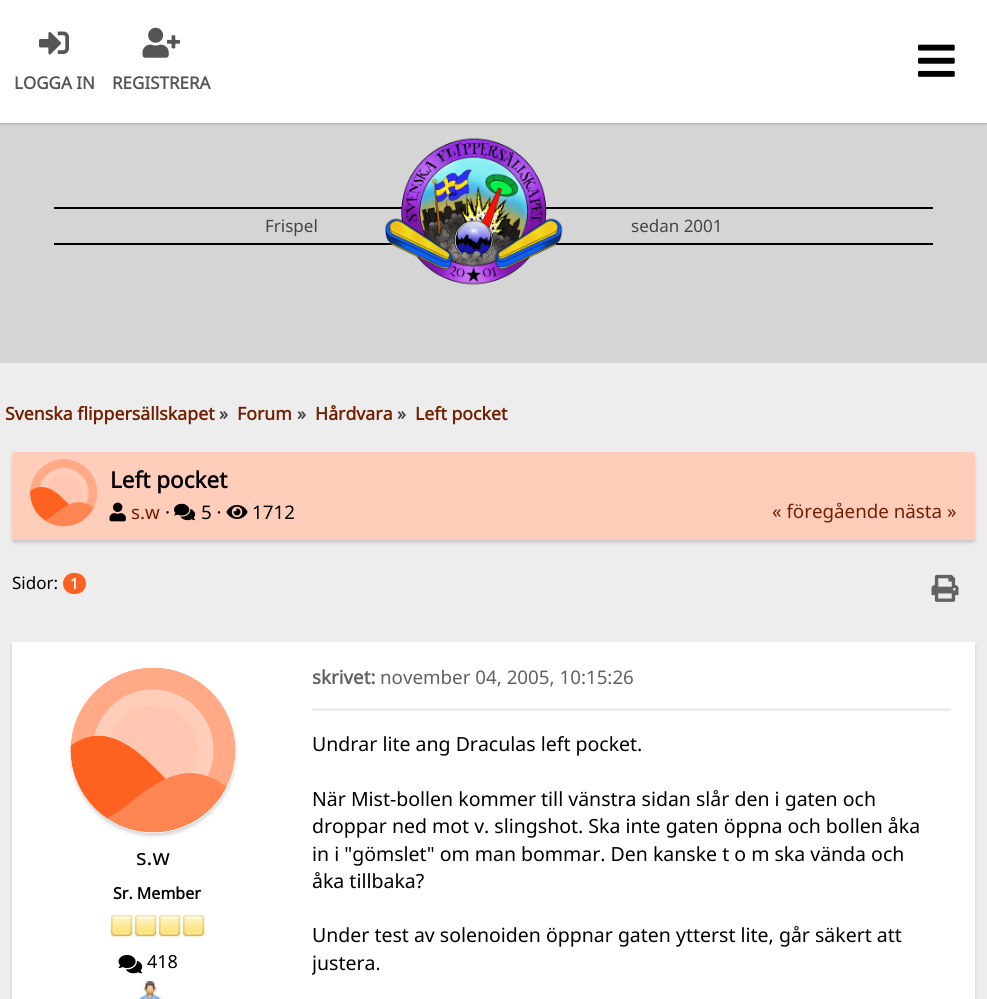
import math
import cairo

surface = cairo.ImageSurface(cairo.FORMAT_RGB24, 987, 999)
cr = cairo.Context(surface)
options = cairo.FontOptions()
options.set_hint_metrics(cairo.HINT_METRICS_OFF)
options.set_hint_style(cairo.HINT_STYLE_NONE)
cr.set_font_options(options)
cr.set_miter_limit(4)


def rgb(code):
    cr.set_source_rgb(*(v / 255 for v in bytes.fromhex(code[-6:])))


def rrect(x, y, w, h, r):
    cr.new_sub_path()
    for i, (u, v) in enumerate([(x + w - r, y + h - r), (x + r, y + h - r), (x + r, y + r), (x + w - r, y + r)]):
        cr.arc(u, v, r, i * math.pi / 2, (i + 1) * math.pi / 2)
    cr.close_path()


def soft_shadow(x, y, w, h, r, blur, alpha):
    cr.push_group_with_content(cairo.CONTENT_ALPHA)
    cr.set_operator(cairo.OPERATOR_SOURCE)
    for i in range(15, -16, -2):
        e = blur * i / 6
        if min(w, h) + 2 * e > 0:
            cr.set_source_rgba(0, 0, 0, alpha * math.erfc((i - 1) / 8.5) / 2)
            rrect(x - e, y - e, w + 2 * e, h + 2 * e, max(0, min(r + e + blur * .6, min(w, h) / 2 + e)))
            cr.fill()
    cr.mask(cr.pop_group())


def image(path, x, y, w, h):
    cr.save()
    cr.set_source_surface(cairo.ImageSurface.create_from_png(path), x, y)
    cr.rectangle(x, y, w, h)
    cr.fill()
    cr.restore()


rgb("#ededed")
cr.paint()
rgb("#d5d5d5")
cr.rectangle(0, 123, 987, 240)
cr.fill()
rgb("#000000")
soft_shadow(0, 0, 987, 123, 0, 1.5, 0.33)
rgb("#ffffff")
cr.rectangle(0, 0, 987, 123)
cr.fill()
image("img/1.png", 918, 44, 37, 33)
image("img/2.png", 39, 31, 30, 24)
image("img/3.png", 142, 27, 38, 31)
rgb("#000000")
cr.rectangle(54, 207, 879, 2)
cr.fill()
cr.rectangle(54, 243, 879, 2)
cr.fill()
image("img/4.png", 385, 138, 178, 147)
rgb("#000000")
soft_shadow(12, 455, 963, 88, 3, 1.5, 0.15)
rgb("#ffcdb9")
rrect(12, 452, 963, 88, 3)
cr.fill()
image("img/5.png", 30, 459, 68, 68)
image("img/6.png", 109, 502, 17, 20)
image("img/7.png", 174, 503, 22, 18)
image("img/8.png", 226, 505, 22, 14)
rgb("#ff6120")
rrect(63, 573, 23, 21, 10.5)
cr.fill()
image("img/9.png", 931, 574, 28, 28)
rgb("#000000")
soft_shadow(12, 645, 963, 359, 0, 1.5, 0.15)
rgb("#ffffff")
cr.rectangle(12, 642, 963, 357)
cr.fill()
rgb("#000000")
soft_shadow(71, 671, 165, 165, 82.5, 1.5, 0.15)
rgb("#ffffff")
cr.arc(153.5, 750.5, 82.5, 0, 2 * math.pi)
cr.fill()
image("img/10.png", 70, 667, 166, 166)
image("img/11.png", 110, 914, 23, 23)
image("img/11.png", 134, 914, 23, 23)
image("img/11.png", 158, 914, 23, 23)
image("img/11.png", 182, 914, 23, 23)
image("img/12.png", 118, 954, 25, 20)
image("img/13.png", 139, 981, 22, 18)
rgb("#ededed")
cr.rectangle(312, 708, 639, 3)
cr.fill()
cr.select_font_face("Noto Sans", cairo.FONT_SLANT_NORMAL, cairo.FONT_WEIGHT_BOLD)
cr.set_font_size(17)
rgb("#555555")
cr.move_to(14, 89)
cr.show_text("LOGGA IN")
cr.move_to(112, 89)
cr.show_text("REGISTRERA")
cr.select_font_face("Noto Sans")
rgb("#444444")
cr.move_to(265, 232)
cr.show_text("Frispel")
cr.move_to(631, 232)
cr.show_text("sedan 2001")
cr.select_font_face("Noto Sans", cairo.FONT_SLANT_NORMAL, cairo.FONT_WEIGHT_BOLD)
cr.set_font_size(17.75)
rgb("#702000")
cr.move_to(5, 420)
cr.show_text("Svenska flippersällskapet")
rgb("#444444")
cr.move_to(219, 420)
cr.show_text("»")
rgb("#702000")
cr.move_to(237, 420)
cr.show_text("Forum")
rgb("#444444")
cr.move_to(297, 420)
cr.show_text("»")
rgb("#702000")
cr.move_to(315, 420)
cr.show_text("Hårdvara")
rgb("#444444")
cr.move_to(397, 420)
cr.show_text("»")
rgb("#702000")
cr.move_to(415, 420)
cr.show_text("Left pocket")
cr.set_font_size(22.5)
rgb("#000000")
cr.move_to(110, 488)
cr.show_text("Left pocket")
cr.select_font_face("Noto Sans")
cr.set_font_size(18.75)
rgb("#702000")
cr.move_to(131, 519)
cr.show_text("s.w")
rgb("#000000")
for x, y, s in [
    (165, 519, "·"),
    (201, 519, "5 ·"),
    (252, 519, "1712"),
]:
    cr.move_to(x, y)
    cr.show_text(s)
rgb("#702000")
cr.move_to(772, 518)
cr.show_text("« föregående nästa »")
cr.set_font_size(17)
rgb("#000000")
cr.move_to(12, 589)
cr.show_text("Sidor:")
cr.select_font_face("Noto Sans", cairo.FONT_SLANT_NORMAL, cairo.FONT_WEIGHT_BOLD)
cr.set_font_size(15)
rgb("#ffffff")
cr.move_to(70, 589)
cr.show_text("1")
cr.select_font_face("Noto Sans")
cr.set_font_size(22)
rgb("#000000")
cr.move_to(136, 865)
cr.show_text("s.w")
cr.select_font_face("Noto Sans", cairo.FONT_SLANT_NORMAL, cairo.FONT_WEIGHT_BOLD)
cr.set_font_size(16)
cr.move_to(113, 899)
cr.show_text("Sr. Member")
cr.select_font_face("Noto Sans")
cr.set_font_size(18)
cr.move_to(147, 968)
cr.show_text("418")
cr.select_font_face("Noto Sans", cairo.FONT_SLANT_NORMAL, cairo.FONT_WEIGHT_BOLD)
cr.set_font_size(18.75)
rgb("#616161")
cr.move_to(312, 684)
cr.show_text("skrivet:")
cr.select_font_face("Noto Sans")
cr.move_to(380, 684)
cr.show_text("november 04, 2005, 10:15:26")
cr.set_font_size(19.5)
rgb("#000000")
for x, y, s in [
    (312, 751, "Undrar lite ang Draculas left pocket."),
    (312, 806, "När Mist-bollen kommer till vänstra sidan slår den i gaten och"),
    (312, 833, "droppar ned mot v. slingshot. Ska inte gaten öppna och bollen åka"),
    (312, 861, "in i \"gömslet\" om man bommar. Den kanske t o m ska vända och"),
    (312, 888, "åka tillbaka?"),
    (312, 942, "Under test av solenoiden öppnar gaten ytterst lite, går säkert att"),
]:
    cr.move_to(x, y)
    cr.show_text(s)
cr.save()
cr.rectangle(312, 707, 639, 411)
cr.clip()
cr.move_to(312, 970)
cr.show_text("justera.")
cr.restore()
surface.write_to_png("page.png")
